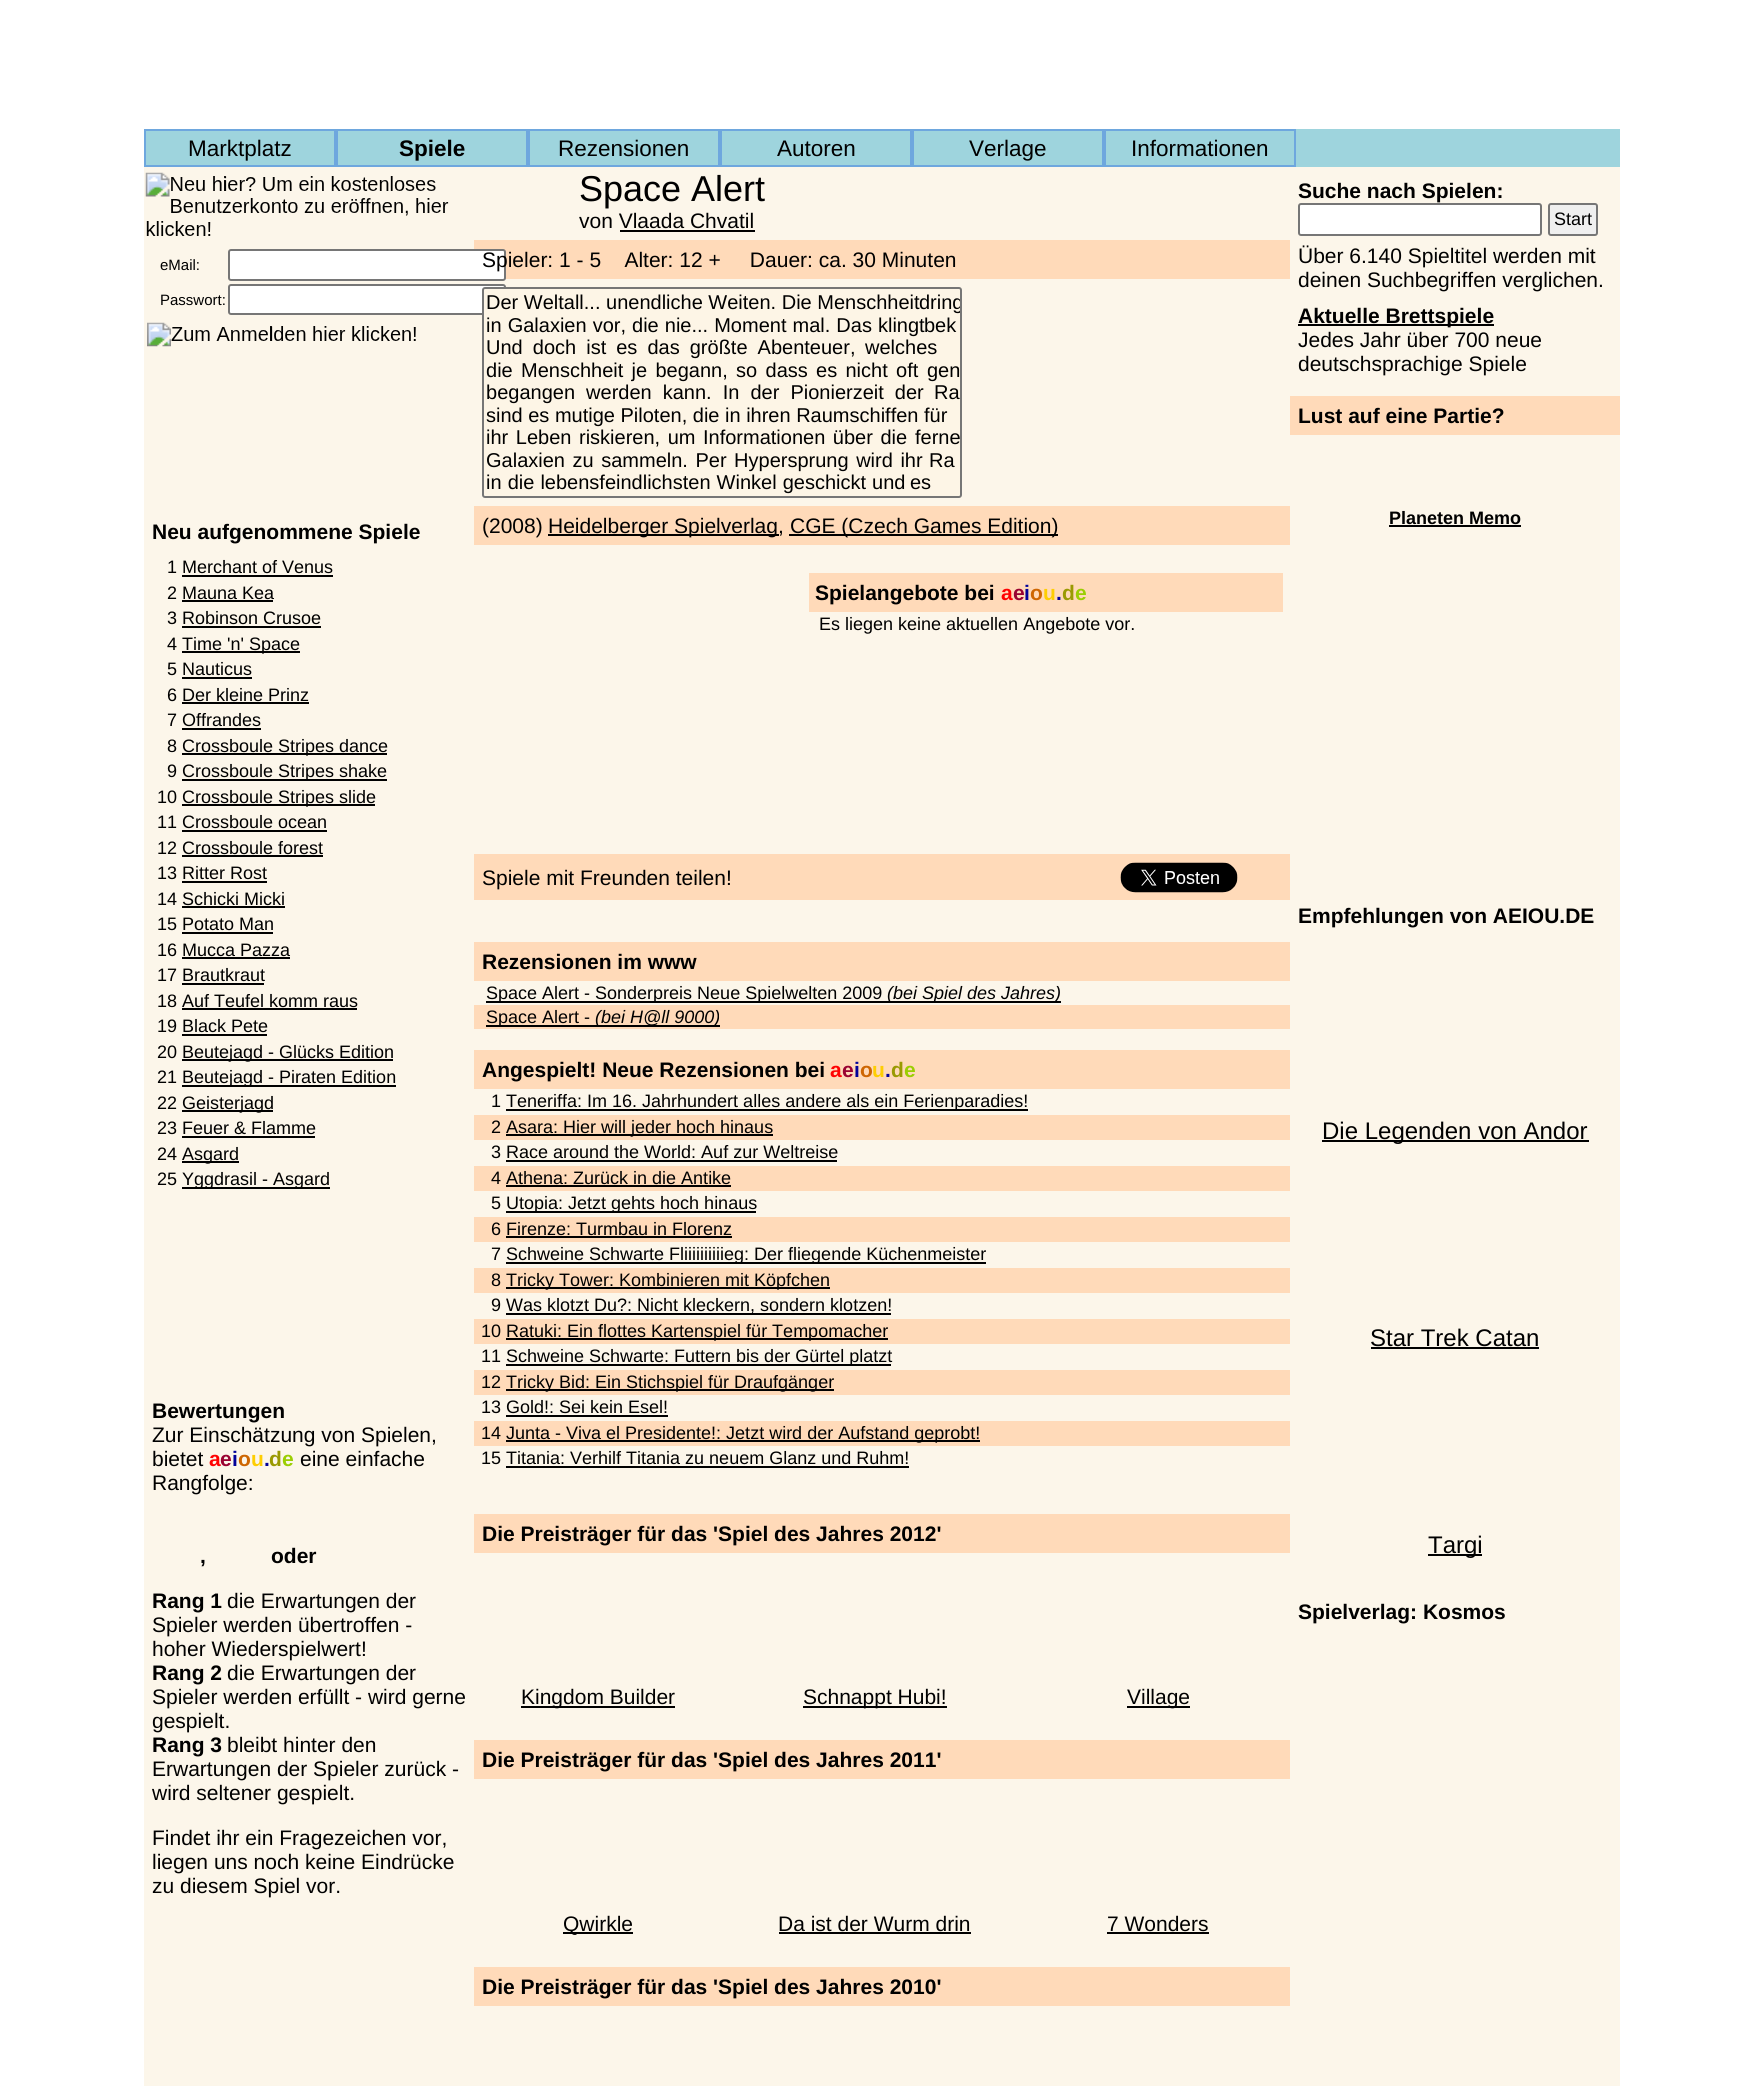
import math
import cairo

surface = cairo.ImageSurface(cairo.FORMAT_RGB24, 1764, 2086)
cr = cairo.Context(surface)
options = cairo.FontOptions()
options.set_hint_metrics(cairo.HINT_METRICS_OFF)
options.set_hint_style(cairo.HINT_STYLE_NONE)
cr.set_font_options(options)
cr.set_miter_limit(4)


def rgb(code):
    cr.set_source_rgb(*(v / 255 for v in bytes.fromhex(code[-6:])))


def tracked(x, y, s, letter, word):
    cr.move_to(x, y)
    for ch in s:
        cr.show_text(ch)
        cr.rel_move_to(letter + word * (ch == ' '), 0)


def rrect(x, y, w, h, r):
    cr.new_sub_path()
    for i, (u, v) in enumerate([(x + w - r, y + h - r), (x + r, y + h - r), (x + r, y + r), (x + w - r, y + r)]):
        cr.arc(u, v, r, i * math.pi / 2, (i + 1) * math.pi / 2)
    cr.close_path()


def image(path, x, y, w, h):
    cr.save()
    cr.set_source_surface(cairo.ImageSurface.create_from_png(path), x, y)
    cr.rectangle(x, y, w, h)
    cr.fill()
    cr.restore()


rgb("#ffffff")
cr.paint()
rgb("#fcf6ea")
cr.rectangle(144, 167, 1476, 1919)
cr.fill()
rgb("#9ed4dd")
cr.rectangle(146, 129, 1474, 38)
cr.fill()
cr.rectangle(145, 130, 190, 36)
rgb("#6ea7de")
cr.stroke()
cr.rectangle(337, 130, 190, 36)
cr.stroke()
cr.rectangle(529, 130, 190, 36)
cr.stroke()
cr.rectangle(721, 130, 190, 36)
cr.stroke()
cr.rectangle(913, 130, 190, 36)
cr.stroke()
cr.rectangle(1105, 130, 190, 36)
cr.stroke()
image("img/1.png", 145, 172, 304, 64)
rgb("#ffdab9")
cr.rectangle(474, 240, 816, 39)
cr.fill()
rgb("#ffffff")
rrect(229, 250, 276, 30, 2)
cr.fill_preserve()
rgb("#767676")
cr.stroke()
rgb("#ffffff")
rrect(229, 285, 276, 29, 2)
cr.fill_preserve()
rgb("#767676")
cr.stroke()
image("img/2.png", 147, 322, 269, 25)
for x, y, w, h, color in [
    (182, 575, 151, 2, "#000000"),
    (182, 600, 91, 2, "#000000"),
    (182, 626, 139, 2, "#000000"),
    (182, 651, 118, 2, "#000000"),
    (182, 677, 70, 2, "#000000"),
    (182, 702, 127, 2, "#000000"),
    (182, 728, 79, 2, "#000000"),
    (182, 753, 205, 2, "#000000"),
    (182, 779, 205, 2, "#000000"),
    (182, 804, 193, 2, "#000000"),
    (182, 830, 145, 2, "#000000"),
    (182, 855, 141, 2, "#000000"),
    (182, 881, 85, 2, "#000000"),
    (182, 906, 103, 2, "#000000"),
    (182, 932, 91, 2, "#000000"),
    (182, 957, 108, 2, "#000000"),
    (182, 983, 82, 2, "#000000"),
    (182, 1008, 175, 2, "#000000"),
    (182, 1034, 85, 2, "#000000"),
    (182, 1059, 211, 2, "#000000"),
    (182, 1085, 214, 2, "#000000"),
    (182, 1110, 91, 2, "#000000"),
    (182, 1136, 133, 2, "#000000"),
    (182, 1161, 57, 2, "#000000"),
    (182, 1187, 148, 2, "#000000"),
    (620, 230, 135, 2, "#000000"),
]:
    rgb(color)
    cr.rectangle(x, y, w, h)
    cr.fill()
rgb("#fdf5e6")
rrect(483, 288, 478, 209, 2)
cr.fill_preserve()
rgb("#767676")
cr.stroke()
for x, y, w, h, color in [
    (474, 506, 816, 39, "#ffdab9"),
    (548, 534, 231, 2, "#000000"),
    (789, 534, 269, 2, "#000000"),
    (809, 573, 474, 39, "#ffdab9"),
    (474, 854, 816, 46, "#ffdab9"),
]:
    rgb(color)
    cr.rectangle(x, y, w, h)
    cr.fill()
image("img/3.png", 1120, 862, 118, 31)
for x, y, w, h, color in [
    (474, 942, 816, 39, "#ffdab9"),
    (486, 1001, 575, 2, "#000000"),
    (474, 1005, 816, 24, "#ffdab9"),
    (486, 1025, 234, 2, "#000000"),
    (474, 1050, 816, 39, "#ffdab9"),
    (506, 1109, 522, 2, "#000000"),
    (474, 1115, 816, 25, "#ffdab9"),
    (506, 1134, 267, 2, "#000000"),
    (506, 1160, 331, 2, "#000000"),
    (474, 1166, 816, 25, "#ffdab9"),
    (506, 1185, 225, 2, "#000000"),
    (506, 1211, 250, 2, "#000000"),
    (474, 1217, 816, 25, "#ffdab9"),
    (506, 1236, 226, 2, "#000000"),
    (506, 1262, 480, 2, "#000000"),
    (474, 1268, 816, 25, "#ffdab9"),
    (506, 1287, 324, 2, "#000000"),
    (506, 1313, 385, 2, "#000000"),
    (474, 1319, 816, 25, "#ffdab9"),
    (506, 1338, 382, 2, "#000000"),
    (506, 1364, 385, 2, "#000000"),
    (474, 1370, 816, 25, "#ffdab9"),
    (506, 1389, 328, 2, "#000000"),
    (506, 1415, 162, 2, "#000000"),
    (474, 1421, 816, 25, "#ffdab9"),
    (506, 1440, 474, 2, "#000000"),
    (506, 1466, 403, 2, "#000000"),
    (474, 1514, 816, 39, "#ffdab9"),
    (521, 1706, 154, 2, "#000000"),
    (803, 1706, 144, 2, "#000000"),
    (1127, 1706, 63, 2, "#000000"),
    (474, 1740, 816, 39, "#ffdab9"),
    (563, 1932, 70, 2, "#000000"),
    (779, 1932, 192, 2, "#000000"),
    (1107, 1932, 102, 2, "#000000"),
    (474, 1967, 816, 39, "#ffdab9"),
]:
    rgb(color)
    cr.rectangle(x, y, w, h)
    cr.fill()
rgb("#ffffff")
rrect(1299, 204, 242, 31, 2)
cr.fill_preserve()
rgb("#767676")
cr.stroke()
rgb("#efefef")
rrect(1549, 204, 48, 31, 2)
cr.fill_preserve()
rgb("#767676")
cr.stroke()
for x, y, w, h, color in [
    (1298, 324, 196, 2, "#000000"),
    (1290, 396, 330, 39, "#ffdab9"),
    (1389, 525, 132, 2, "#000000"),
    (1322, 1140, 267, 2, "#000000"),
    (1371, 1347, 168, 2, "#000000"),
    (1428, 1554, 54, 2, "#000000"),
]:
    rgb(color)
    cr.rectangle(x, y, w, h)
    cr.fill()
cr.select_font_face("Liberation Sans")
cr.set_font_size(22.5)
cr.move_to(188, 156)
cr.show_text("Marktplatz")
cr.select_font_face("Liberation Sans", cairo.FONT_SLANT_NORMAL, cairo.FONT_WEIGHT_BOLD)
cr.move_to(399, 156)
cr.show_text("Spiele")
cr.select_font_face("Liberation Sans")
for x, y, s in [
    (558, 156, "Rezensionen"),
    (777, 156, "Autoren"),
    (969, 156, "Verlage"),
    (1131, 156, "Informationen"),
]:
    cr.move_to(x, y)
    cr.show_text(s)
cr.set_font_size(20)
cr.move_to(223, 191)
cr.show_text("i")
cr.set_font_size(15)
cr.move_to(160, 270)
cr.show_text("eMail:")
cr.move_to(160, 305)
cr.show_text("Passwort:")
cr.set_font_size(20)
cr.move_to(269, 341)
cr.show_text("l")
cr.select_font_face("Liberation Sans", cairo.FONT_SLANT_NORMAL, cairo.FONT_WEIGHT_BOLD)
cr.set_font_size(21)
cr.move_to(152, 539)
cr.show_text("Neu aufgenommene Spiele")
cr.select_font_face("Liberation Sans")
cr.set_font_size(18)
for x, y, s in [
    (167, 573, "1 Merchant of Venus"),
    (167, 599, "2 Mauna Kea"),
    (167, 624, "3 Robinson Crusoe"),
    (167, 650, "4"),
    (182, 650, "Time 'n' Space"),
    (167, 675, "5 Nauticus"),
    (167, 701, "6 Der kleine Prinz"),
    (167, 726, "7 Offrandes"),
    (167, 752, "8"),
    (182, 752, "Crossboule Stripes dance"),
    (167, 777, "9"),
    (182, 777, "Crossboule Stripes shake"),
    (157, 803, "10"),
    (182, 803, "Crossboule Stripes slide"),
    (157, 828, "11 Crossboule ocean"),
    (157, 854, "12 Crossboule forest"),
    (157, 879, "13 Ritter Rost"),
    (157, 905, "14 Schicki Micki"),
    (157, 930, "15 Potato Man"),
    (157, 956, "16 Mucca Pazza"),
    (157, 981, "17 Brautkraut"),
    (157, 1007, "18 Auf Teufel komm raus"),
    (157, 1032, "19 Black Pete"),
    (157, 1058, "20"),
    (182, 1058, "Beutejagd - Glücks Edition"),
    (157, 1083, "21"),
    (182, 1083, "Beutejagd - Piraten Edition"),
    (157, 1109, "22"),
    (182, 1109, "Geisterjagd"),
    (157, 1134, "23 Feuer & Flamme"),
    (157, 1160, "24"),
    (182, 1160, "Asgard"),
    (157, 1185, "25"),
    (182, 1185, "Yggdrasil - Asgard"),
]:
    cr.move_to(x, y)
    cr.show_text(s)
cr.select_font_face("Liberation Sans", cairo.FONT_SLANT_NORMAL, cairo.FONT_WEIGHT_BOLD)
cr.set_font_size(21)
cr.move_to(152, 1418)
cr.show_text("Bewertungen")
cr.select_font_face("Liberation Sans")
cr.move_to(152, 1442)
cr.show_text("Zur Einschätzung von Spielen,")
cr.move_to(152, 1466)
cr.show_text("bietet")
cr.select_font_face("Liberation Sans", cairo.FONT_SLANT_NORMAL, cairo.FONT_WEIGHT_BOLD)
rgb("#ff0202")
cr.move_to(209, 1466)
cr.show_text("a")
rgb("#9a0232")
cr.move_to(220, 1466)
cr.show_text("e")
rgb("#02029a")
cr.move_to(232, 1466)
cr.show_text("i")
rgb("#ce6602")
cr.move_to(238, 1466)
cr.show_text("o")
rgb("#fece02")
cr.move_to(251, 1466)
cr.show_text("u")
rgb("#02029a")
cr.move_to(264, 1466)
cr.show_text(".")
rgb("#9a9a02")
cr.move_to(269, 1466)
cr.show_text("d")
rgb("#9bce03")
cr.move_to(282, 1466)
cr.show_text("e")
cr.select_font_face("Liberation Sans")
rgb("#000000")
cr.move_to(300, 1466)
cr.show_text("eine einfache")
cr.move_to(152, 1490)
cr.show_text("Rangfolge:")
cr.select_font_face("Liberation Sans", cairo.FONT_SLANT_NORMAL, cairo.FONT_WEIGHT_BOLD)
for x, y, s in [
    (200, 1563, ","),
    (271, 1563, "oder"),
    (152, 1608, "Rang 1"),
]:
    cr.move_to(x, y)
    cr.show_text(s)
cr.select_font_face("Liberation Sans")
for x, y, s in [
    (227, 1608, "die Erwartungen der"),
    (152, 1632, "Spieler werden übertroffen -"),
    (152, 1656, "hoher Wiederspielwert!"),
]:
    cr.move_to(x, y)
    cr.show_text(s)
cr.select_font_face("Liberation Sans", cairo.FONT_SLANT_NORMAL, cairo.FONT_WEIGHT_BOLD)
cr.move_to(152, 1680)
cr.show_text("Rang 2")
cr.select_font_face("Liberation Sans")
for x, y, s in [
    (227, 1680, "die Erwartungen der"),
    (152, 1704, "Spieler werden erfüllt - wird gerne"),
    (152, 1728, "gespielt."),
]:
    cr.move_to(x, y)
    cr.show_text(s)
cr.select_font_face("Liberation Sans", cairo.FONT_SLANT_NORMAL, cairo.FONT_WEIGHT_BOLD)
cr.move_to(152, 1752)
cr.show_text("Rang 3")
cr.select_font_face("Liberation Sans")
for x, y, s in [
    (227, 1752, "bleibt hinter den"),
    (152, 1776, "Erwartungen der Spieler zurück -"),
    (152, 1800, "wird seltener gespielt."),
    (152, 1845, "Findet ihr ein Fragezeichen vor,"),
    (152, 1869, "liegen uns noch keine Eindrücke"),
    (152, 1893, "zu diesem Spiel vor."),
]:
    cr.move_to(x, y)
    cr.show_text(s)
cr.set_font_size(36)
cr.move_to(579, 201)
cr.show_text("Space Alert")
cr.set_font_size(21)
cr.move_to(579, 228)
cr.show_text("von Vlaada Chvatil")
cr.move_to(482, 267)
cr.show_text("Spieler: 1 - 5    Alter: 12 +     Dauer: ca. 30 Minuten")
cr.set_font_size(20)
cr.move_to(486, 309)
cr.show_text("Der Weltall... unendliche Weiten. Die Menschheit")
cr.save()
cr.rectangle(483, 288, 477, 209)
cr.clip()
cr.move_to(919, 309)
cr.show_text("dring")
cr.restore()
tracked(486, 332, "in Galaxien vor, die nie... Moment mal. Das klingt", 0, 0.5)
cr.move_to(924, 332)
cr.show_text("bek")
tracked(486, 354, "Und doch ist es das größte Abenteuer,", 0, 4.5)
cr.move_to(865, 354)
cr.show_text("welches")
tracked(486, 377, "die Menschheit je begann, so dass es nicht oft", 0, 2.75)
cr.move_to(927, 377)
cr.show_text("gen")
tracked(486, 399, "begangen werden kann. In der Pionierzeit der", 0, 5.5)
cr.move_to(934, 399)
cr.show_text("Ra")
cr.move_to(486, 422)
cr.show_text("sind es mutige Piloten, die in ihren Raumschiffen für")
tracked(486, 444, "ihr Leben riskieren, um Informationen über die", 0, 2)
cr.move_to(915, 444)
cr.show_text("ferne")
tracked(486, 467, "Galaxien zu sammeln. Per Hypersprung wird ihr", 0, 2)
cr.move_to(929, 467)
cr.show_text("Ra")
tracked(486, 489, "in die lebensfeindlichsten Winkel geschickt und", 0, 0.5)
cr.move_to(910, 489)
cr.show_text("es")
cr.set_font_size(21)
for x, y, s in [
    (482, 533, "(2008)"),
    (548, 533, "Heidelberger Spielverlag,"),
    (790, 533, "CGE (Czech Games Edition)"),
]:
    cr.move_to(x, y)
    cr.show_text(s)
cr.select_font_face("Liberation Sans", cairo.FONT_SLANT_NORMAL, cairo.FONT_WEIGHT_BOLD)
cr.move_to(815, 600)
cr.show_text("Spielangebote bei")
rgb("#ff0202")
cr.move_to(1001, 600)
cr.show_text("a")
rgb("#9a0232")
cr.move_to(1013, 600)
cr.show_text("e")
rgb("#02029a")
cr.move_to(1024, 600)
cr.show_text("i")
rgb("#ce6602")
cr.move_to(1030, 600)
cr.show_text("o")
rgb("#fece02")
cr.move_to(1043, 600)
cr.show_text("u")
rgb("#02029a")
cr.move_to(1056, 600)
cr.show_text(".")
rgb("#9a9a02")
cr.move_to(1062, 600)
cr.show_text("d")
rgb("#9bce03")
cr.move_to(1075, 600)
cr.show_text("e")
cr.select_font_face("Liberation Sans")
cr.set_font_size(18)
rgb("#000000")
cr.move_to(819, 630)
cr.show_text("Es liegen keine aktuellen Angebote vor.")
cr.set_font_size(21)
cr.move_to(482, 885)
cr.show_text("Spiele mit Freunden teilen!")
cr.select_font_face("Liberation Sans", cairo.FONT_SLANT_NORMAL, cairo.FONT_WEIGHT_BOLD)
cr.move_to(482, 969)
cr.show_text("Rezensionen im www")
cr.select_font_face("Liberation Sans")
cr.set_font_size(18)
cr.move_to(486, 999)
cr.show_text("Space Alert - Sonderpreis Neue Spielwelten 2009")
cr.select_font_face("Liberation Sans", cairo.FONT_SLANT_ITALIC)
cr.move_to(887, 999)
cr.show_text("(bei Spiel des Jahres)")
cr.select_font_face("Liberation Sans")
cr.move_to(486, 1023)
cr.show_text("Space Alert -")
cr.select_font_face("Liberation Sans", cairo.FONT_SLANT_ITALIC)
cr.move_to(595, 1023)
cr.show_text("(bei H@ll 9000)")
cr.select_font_face("Liberation Sans", cairo.FONT_SLANT_NORMAL, cairo.FONT_WEIGHT_BOLD)
cr.set_font_size(21)
cr.move_to(482, 1077)
cr.show_text("Angespielt! Neue Rezensionen bei")
rgb("#ff0202")
cr.move_to(830, 1077)
cr.show_text("a")
rgb("#9a0232")
cr.move_to(842, 1077)
cr.show_text("e")
rgb("#02029a")
cr.move_to(854, 1077)
cr.show_text("i")
rgb("#ce6602")
cr.move_to(860, 1077)
cr.show_text("o")
rgb("#fece02")
cr.move_to(872, 1077)
cr.show_text("u")
rgb("#02029a")
cr.move_to(885, 1077)
cr.show_text(".")
rgb("#9a9a02")
cr.move_to(891, 1077)
cr.show_text("d")
rgb("#9bce03")
cr.move_to(904, 1077)
cr.show_text("e")
cr.select_font_face("Liberation Sans")
cr.set_font_size(18)
rgb("#000000")
for x, y, s in [
    (491, 1107, "1"),
    (506, 1107, "Teneriffa: Im 16. Jahrhundert alles andere als ein Ferienparadies!"),
    (491, 1133, "2"),
    (506, 1133, "Asara: Hier will jeder hoch hinaus"),
    (491, 1158, "3 Race around the World: Auf zur Weltreise"),
    (491, 1184, "4 Athena: Zurück in die Antike"),
    (491, 1209, "5"),
    (506, 1209, "Utopia: Jetzt gehts hoch hinaus"),
    (491, 1235, "6 Firenze: Turmbau in Florenz"),
    (491, 1260, "7"),
    (506, 1260, "Schweine Schwarte Fliiiiiiiiiieg: Der fliegende Küchenmeister"),
    (491, 1286, "8"),
    (506, 1286, "Tricky Tower: Kombinieren mit Köpfchen"),
    (491, 1311, "9"),
    (506, 1311, "Was klotzt Du?: Nicht kleckern, sondern klotzen!"),
    (481, 1337, "10"),
    (506, 1337, "Ratuki: Ein flottes Kartenspiel für Tempomacher"),
    (481, 1362, "11"),
    (506, 1362, "Schweine Schwarte: Futtern bis der Gürtel platzt"),
    (481, 1388, "12"),
    (506, 1388, "Tricky Bid: Ein Stichspiel für Draufgänger"),
    (481, 1413, "13 Gold!: Sei kein Esel!"),
    (481, 1439, "14"),
    (506, 1439, "Junta - Viva el Presidente!: Jetzt wird der Aufstand geprobt!"),
    (481, 1464, "15 Titania: Verhilf Titania zu neuem Glanz und Ruhm!"),
]:
    cr.move_to(x, y)
    cr.show_text(s)
cr.select_font_face("Liberation Sans", cairo.FONT_SLANT_NORMAL, cairo.FONT_WEIGHT_BOLD)
cr.set_font_size(21)
cr.move_to(482, 1541)
cr.show_text("Die Preisträger für das 'Spiel des Jahres 2012'")
cr.select_font_face("Liberation Sans")
for x, y, s in [
    (521, 1704, "Kingdom Builder"),
    (803, 1704, "Schnappt Hubi!"),
    (1127, 1704, "Village"),
]:
    cr.move_to(x, y)
    cr.show_text(s)
cr.select_font_face("Liberation Sans", cairo.FONT_SLANT_NORMAL, cairo.FONT_WEIGHT_BOLD)
cr.move_to(482, 1767)
cr.show_text("Die Preisträger für das 'Spiel des Jahres 2011'")
cr.select_font_face("Liberation Sans")
for x, y, s in [
    (563, 1931, "Qwirkle"),
    (778, 1931, "Da ist der Wurm drin"),
    (1107, 1931, "7 Wonders"),
]:
    cr.move_to(x, y)
    cr.show_text(s)
cr.select_font_face("Liberation Sans", cairo.FONT_SLANT_NORMAL, cairo.FONT_WEIGHT_BOLD)
cr.move_to(482, 1994)
cr.show_text("Die Preisträger für das 'Spiel des Jahres 2010'")
cr.move_to(1298, 198)
cr.show_text("Suche nach Spielen:")
cr.select_font_face("Liberation Sans")
cr.set_font_size(18)
cr.move_to(1554, 225)
cr.show_text("Start")
cr.set_font_size(21)
cr.move_to(1298, 263)
cr.show_text("Über 6.140 Spieltitel werden mit")
cr.move_to(1298, 287)
cr.show_text("deinen Suchbegriffen verglichen.")
cr.select_font_face("Liberation Sans", cairo.FONT_SLANT_NORMAL, cairo.FONT_WEIGHT_BOLD)
cr.move_to(1298, 323)
cr.show_text("Aktuelle Brettspiele")
cr.select_font_face("Liberation Sans")
cr.move_to(1298, 347)
cr.show_text("Jedes Jahr über 700 neue")
cr.move_to(1298, 371)
cr.show_text("deutschsprachige Spiele")
cr.select_font_face("Liberation Sans", cairo.FONT_SLANT_NORMAL, cairo.FONT_WEIGHT_BOLD)
cr.move_to(1298, 423)
cr.show_text("Lust auf eine Partie?")
cr.set_font_size(18)
cr.move_to(1389, 524)
cr.show_text("Planeten Memo")
cr.set_font_size(21)
cr.move_to(1298, 923)
cr.show_text("Empfehlungen von AEIOU.DE")
cr.select_font_face("Liberation Sans")
cr.set_font_size(24)
for x, y, s in [
    (1322, 1139, "Die Legenden von Andor"),
    (1370, 1346, "Star Trek Catan"),
    (1428, 1553, "Targi"),
]:
    cr.move_to(x, y)
    cr.show_text(s)
cr.select_font_face("Liberation Sans", cairo.FONT_SLANT_NORMAL, cairo.FONT_WEIGHT_BOLD)
cr.set_font_size(21)
cr.move_to(1298, 1619)
cr.show_text("Spielverlag: Kosmos")
surface.write_to_png("page.png")
